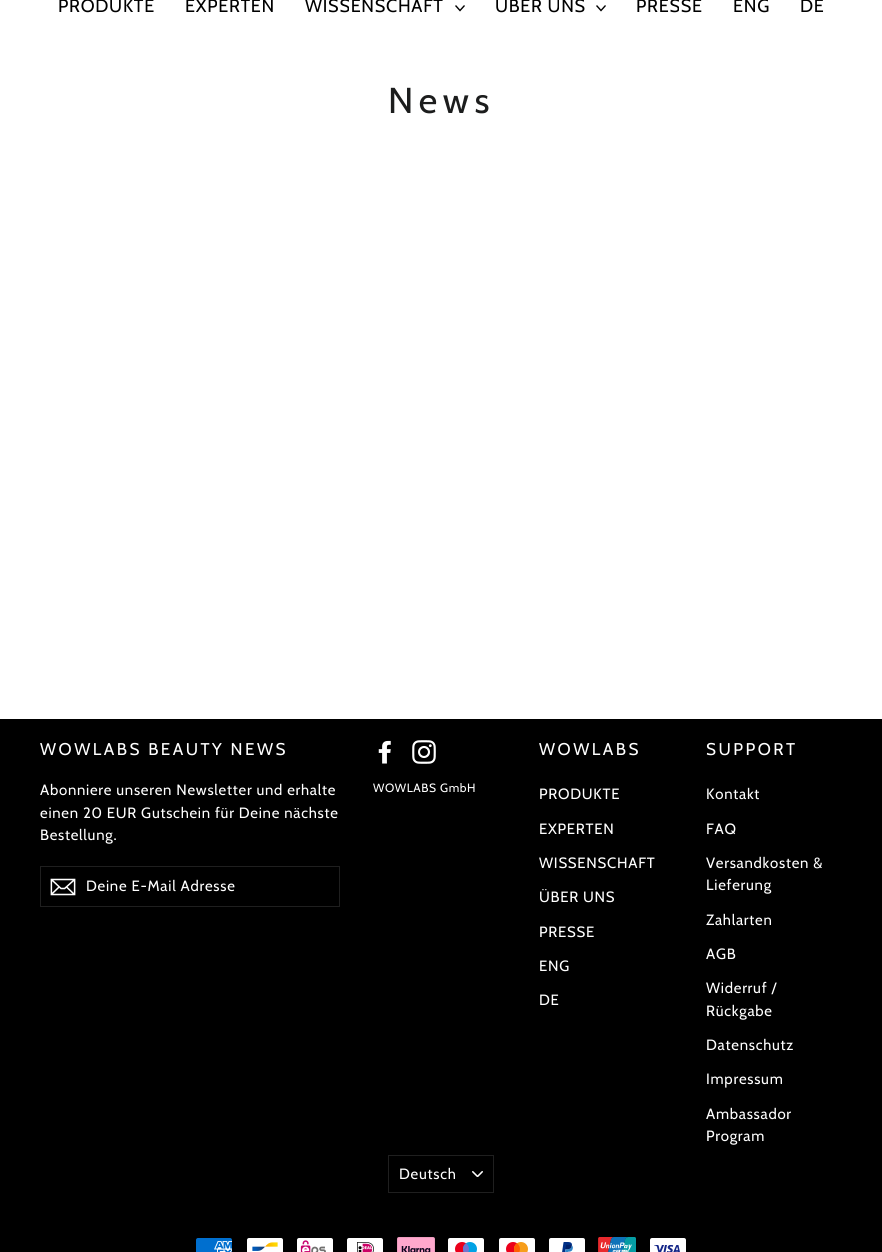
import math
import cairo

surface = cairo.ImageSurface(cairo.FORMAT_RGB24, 882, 1252)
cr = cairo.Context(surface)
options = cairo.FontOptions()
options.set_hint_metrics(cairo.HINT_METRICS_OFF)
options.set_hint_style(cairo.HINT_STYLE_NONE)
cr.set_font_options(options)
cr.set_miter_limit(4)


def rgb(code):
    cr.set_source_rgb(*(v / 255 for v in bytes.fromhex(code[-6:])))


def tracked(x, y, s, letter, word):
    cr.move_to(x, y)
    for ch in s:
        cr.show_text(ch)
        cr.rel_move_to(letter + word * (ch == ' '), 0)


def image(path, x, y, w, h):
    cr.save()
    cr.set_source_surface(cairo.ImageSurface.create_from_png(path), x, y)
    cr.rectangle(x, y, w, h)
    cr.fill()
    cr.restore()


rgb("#ffffff")
cr.paint()
cr.new_path()
cr.move_to(455.5, 5.5)
cr.line_to(460, 10.5)
cr.line_to(464.5, 5.5)
rgb("#000000")
cr.set_line_width(1.4)
cr.stroke()
cr.new_path()
cr.move_to(596.5, 5.5)
cr.line_to(601, 10.5)
cr.line_to(605.5, 5.5)
cr.stroke()
cr.rectangle(0, 719, 882, 533)
cr.fill()
cr.rectangle(40.5, 866.5, 299, 40)
rgb("#1f1f1f")
cr.set_line_width(1)
cr.stroke()
image("img/1.png", 50, 878, 26, 18)
image("img/2.png", 378, 740, 13, 24)
image("img/3.png", 412, 740, 24, 24)
image("img/4.png", 472, 1171, 11, 6)
cr.rectangle(388.5, 1155.5, 105, 37)
cr.stroke()
image("img/5.png", 196, 1238, 36, 14)
image("img/6.png", 247, 1238, 36, 14)
image("img/7.png", 297, 1238, 36, 14)
image("img/8.png", 347, 1238, 36, 14)
image("img/9.png", 397, 1237, 38, 15)
image("img/10.png", 448, 1238, 36, 14)
image("img/11.png", 499, 1238, 36, 14)
image("img/12.png", 549, 1238, 36, 14)
image("img/13.png", 598, 1237, 38, 15)
image("img/14.png", 650, 1238, 36, 14)
cr.select_font_face("Cabin")
cr.set_font_size(18)
rgb("#000000")
for x, y, s in [
    (58, 12, "PRODUKTE"),
    (185, 12, "EXPERTEN"),
    (305, 12, "WISSENSCHAFT"),
    (495, 12, "ÜBER UNS"),
    (636, 12, "PRESSE"),
    (733, 12, "ENG"),
    (800, 12, "DE"),
]:
    tracked(x, y, s, 0.75, 0)
cr.set_font_size(36)
rgb("#1c1d1d")
tracked(388, 113, "News", 5.5, 0)
cr.set_font_size(17)
rgb("#ffffff")
tracked(40, 755, "WOWLABS BEAUTY NEWS", 2.5, 0)
cr.set_font_size(14.9)
for x, y, s in [
    (40, 795, "Abonniere unseren Newsletter und erhalte"),
    (40, 818, "einen 20 EUR Gutschein für Deine nächste"),
    (40, 840, "Bestellung."),
    (86, 891, "Deine E-Mail Adresse"),
]:
    tracked(x, y, s, 0.75, 0)
cr.set_font_size(12)
tracked(373, 792, "WOWLABS GmbH", 0.6, 0)
cr.set_font_size(17)
tracked(539, 755, "WOWLABS", 2.5, 0)
cr.set_font_size(14.9)
for x, y, s in [
    (539, 799, "PRODUKTE"),
    (539, 834, "EXPERTEN"),
    (539, 868, "WISSENSCHAFT"),
    (539, 902, "ÜBER UNS"),
    (539, 937, "PRESSE"),
    (539, 971, "ENG"),
    (539, 1005, "DE"),
]:
    tracked(x, y, s, 0.75, 0)
cr.set_font_size(17)
tracked(706, 755, "SUPPORT", 2.5, 0)
cr.set_font_size(14.9)
for x, y, s in [
    (706, 799, "Kontakt"),
    (706, 834, "FAQ"),
    (706, 868, "Versandkosten &"),
    (706, 890, "Lieferung"),
    (706, 925, "Zahlarten"),
    (706, 959, "AGB"),
    (706, 993, "Widerruf /"),
    (706, 1016, "Rückgabe"),
    (706, 1050, "Datenschutz"),
    (706, 1084, "Impressum"),
    (706, 1119, "Ambassador"),
    (706, 1141, "Program"),
    (399, 1179, "Deutsch"),
]:
    tracked(x, y, s, 0.75, 0)
surface.write_to_png("page.png")
